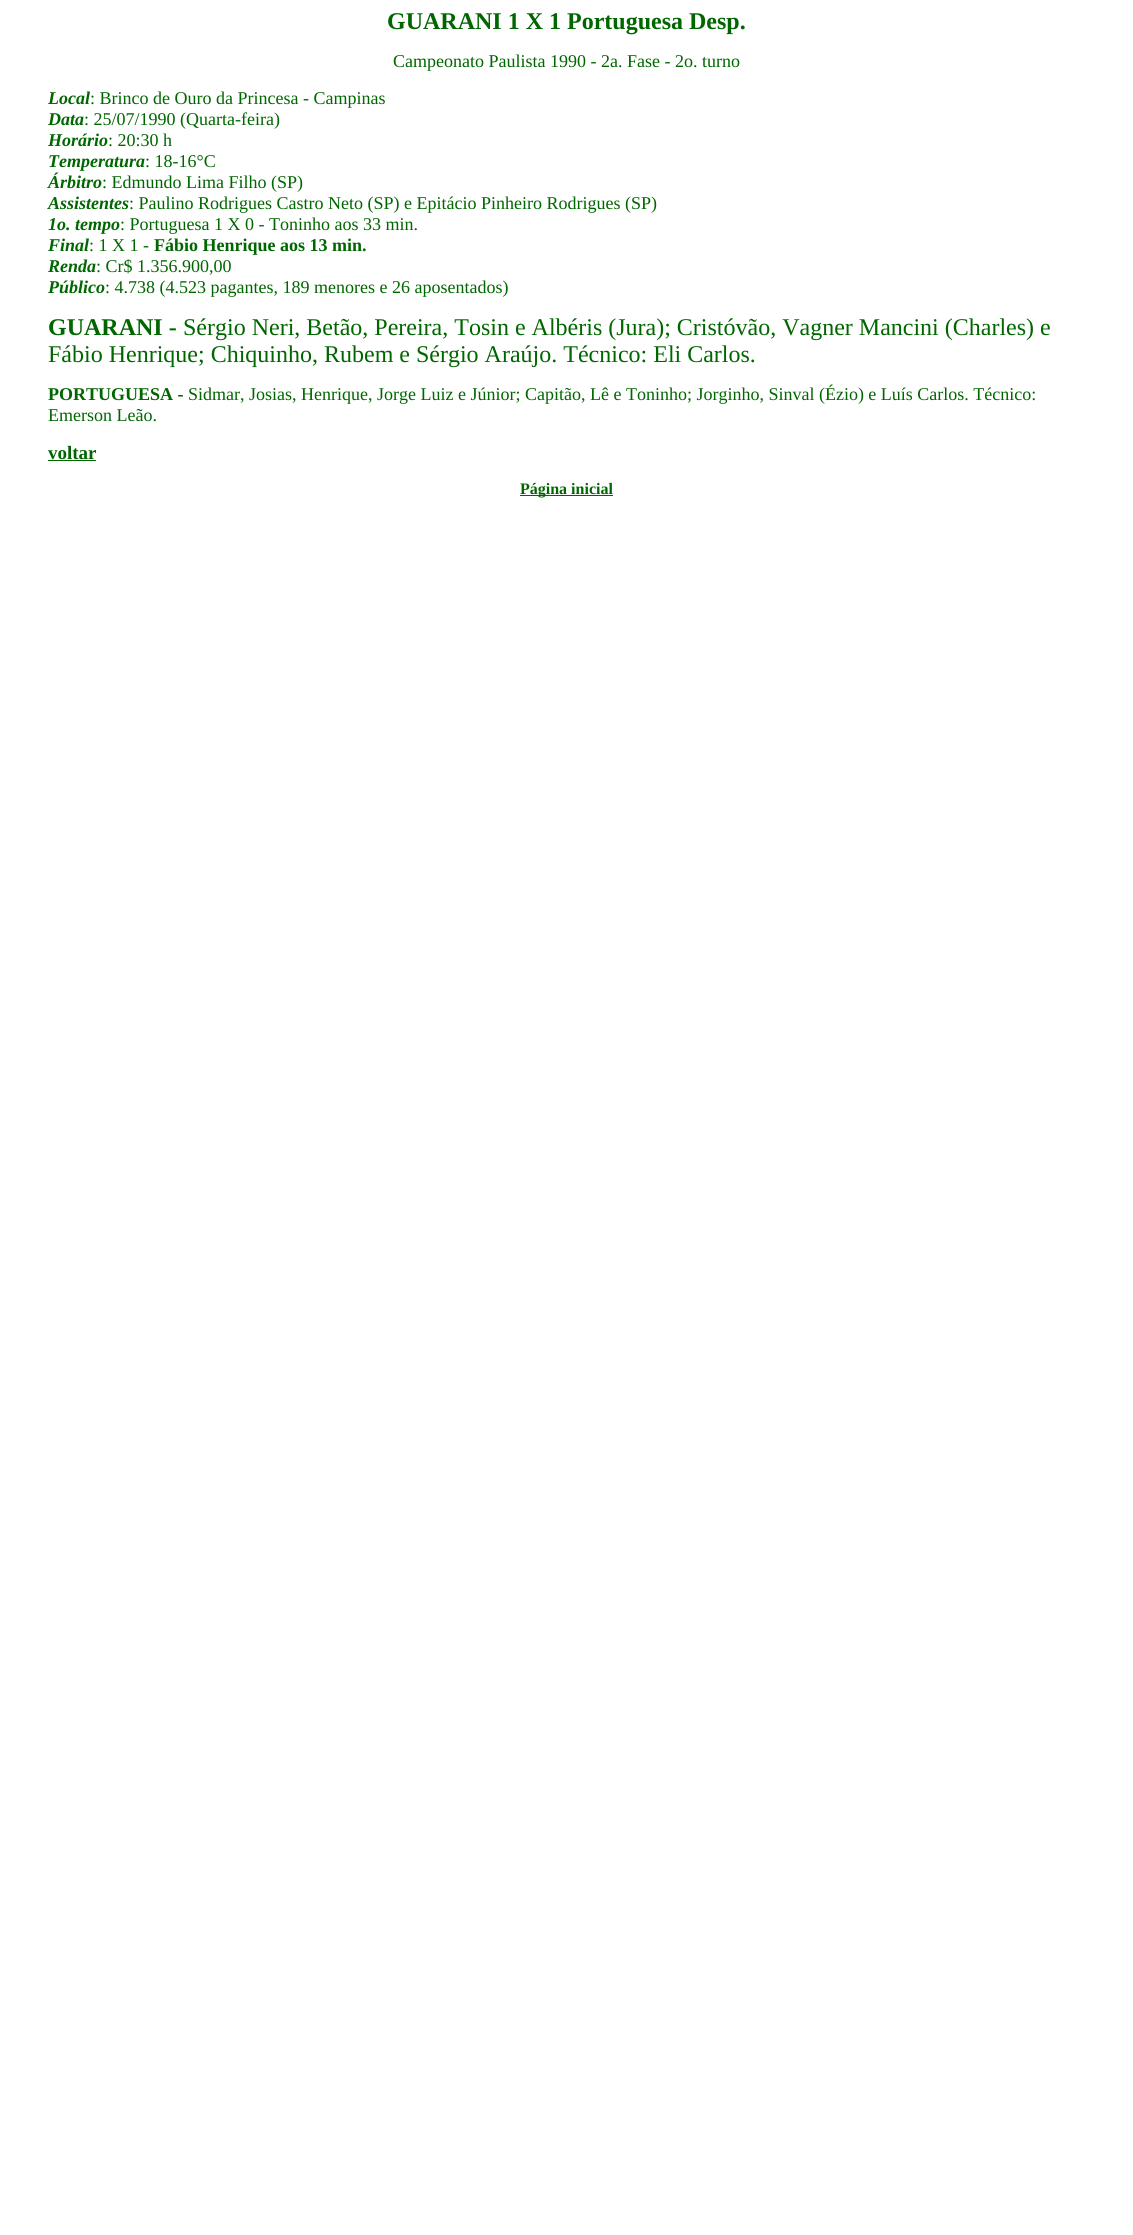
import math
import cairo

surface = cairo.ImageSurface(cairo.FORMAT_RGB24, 1133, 2235)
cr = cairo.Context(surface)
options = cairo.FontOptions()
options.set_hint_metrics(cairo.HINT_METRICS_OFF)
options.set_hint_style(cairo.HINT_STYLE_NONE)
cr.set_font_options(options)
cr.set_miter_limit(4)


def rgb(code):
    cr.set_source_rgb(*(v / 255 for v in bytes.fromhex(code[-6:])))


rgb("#ffffff")
cr.paint()
rgb("#006600")
cr.rectangle(48, 460, 48, 1)
cr.fill()
cr.rectangle(520, 495, 93, 1)
cr.fill()
cr.select_font_face("Liberation Serif", cairo.FONT_SLANT_NORMAL, cairo.FONT_WEIGHT_BOLD)
cr.set_font_size(24)
cr.move_to(387, 29)
cr.show_text("GUARANI 1 X 1 Portuguesa Desp.")
cr.select_font_face("Liberation Serif")
cr.set_font_size(18)
cr.move_to(393, 67)
cr.show_text("Campeonato Paulista 1990 - 2a. Fase - 2o. turno")
cr.select_font_face("Liberation Serif", cairo.FONT_SLANT_ITALIC, cairo.FONT_WEIGHT_BOLD)
cr.move_to(48, 104)
cr.show_text("Local")
cr.select_font_face("Liberation Serif")
cr.move_to(90, 104)
cr.show_text(": Brinco de Ouro da Princesa - Campinas")
cr.select_font_face("Liberation Serif", cairo.FONT_SLANT_ITALIC, cairo.FONT_WEIGHT_BOLD)
cr.move_to(48, 125)
cr.show_text("Data")
cr.select_font_face("Liberation Serif")
cr.move_to(84, 125)
cr.show_text(": 25/07/1990 (Quarta-feira)")
cr.select_font_face("Liberation Serif", cairo.FONT_SLANT_ITALIC, cairo.FONT_WEIGHT_BOLD)
cr.move_to(48, 146)
cr.show_text("Horário")
cr.select_font_face("Liberation Serif")
cr.move_to(108, 146)
cr.show_text(": 20:30 h")
cr.select_font_face("Liberation Serif", cairo.FONT_SLANT_ITALIC, cairo.FONT_WEIGHT_BOLD)
cr.move_to(48, 167)
cr.show_text("Temperatura")
cr.select_font_face("Liberation Serif")
cr.move_to(145, 167)
cr.show_text(": 18-16°C")
cr.select_font_face("Liberation Serif", cairo.FONT_SLANT_ITALIC, cairo.FONT_WEIGHT_BOLD)
cr.move_to(48, 188)
cr.show_text("Árbitro")
cr.select_font_face("Liberation Serif")
cr.move_to(102, 188)
cr.show_text(": Edmundo Lima Filho (SP)")
cr.select_font_face("Liberation Serif", cairo.FONT_SLANT_ITALIC, cairo.FONT_WEIGHT_BOLD)
cr.move_to(48, 209)
cr.show_text("Assistentes")
cr.select_font_face("Liberation Serif")
cr.move_to(129, 209)
cr.show_text(": Paulino Rodrigues Castro Neto (SP) e Epitácio Pinheiro Rodrigues (SP)")
cr.select_font_face("Liberation Serif", cairo.FONT_SLANT_ITALIC, cairo.FONT_WEIGHT_BOLD)
cr.move_to(48, 230)
cr.show_text("1o. tempo")
cr.select_font_face("Liberation Serif")
cr.move_to(120, 230)
cr.show_text(": Portuguesa 1 X 0 - Toninho aos 33 min.")
cr.select_font_face("Liberation Serif", cairo.FONT_SLANT_ITALIC, cairo.FONT_WEIGHT_BOLD)
cr.move_to(48, 251)
cr.show_text("Final")
cr.select_font_face("Liberation Serif")
cr.move_to(89, 251)
cr.show_text(": 1 X 1 -")
cr.select_font_face("Liberation Serif", cairo.FONT_SLANT_NORMAL, cairo.FONT_WEIGHT_BOLD)
cr.move_to(154, 251)
cr.show_text("Fábio Henrique aos 13 min.")
cr.select_font_face("Liberation Serif", cairo.FONT_SLANT_ITALIC, cairo.FONT_WEIGHT_BOLD)
cr.move_to(48, 272)
cr.show_text("Renda")
cr.select_font_face("Liberation Serif")
cr.move_to(96, 272)
cr.show_text(": Cr$ 1.356.900,00")
cr.select_font_face("Liberation Serif", cairo.FONT_SLANT_ITALIC, cairo.FONT_WEIGHT_BOLD)
cr.move_to(48, 293)
cr.show_text("Público")
cr.select_font_face("Liberation Serif")
cr.move_to(105, 293)
cr.show_text(": 4.738 (4.523 pagantes, 189 menores e 26 aposentados)")
cr.select_font_face("Liberation Serif", cairo.FONT_SLANT_NORMAL, cairo.FONT_WEIGHT_BOLD)
cr.set_font_size(24)
cr.move_to(48, 335)
cr.show_text("GUARANI -")
cr.select_font_face("Liberation Serif")
cr.move_to(183, 335)
cr.show_text("Sérgio Neri, Betão, Pereira, Tosin e Albéris (Jura); Cristóvão, Vagner Mancini (Charles) e")
cr.move_to(48, 362)
cr.show_text("Fábio Henrique; Chiquinho, Rubem e Sérgio Araújo. Técnico: Eli Carlos.")
cr.select_font_face("Liberation Serif", cairo.FONT_SLANT_NORMAL, cairo.FONT_WEIGHT_BOLD)
cr.set_font_size(18)
cr.move_to(48, 400)
cr.show_text("PORTUGUESA -")
cr.select_font_face("Liberation Serif")
cr.move_to(188, 400)
cr.show_text("Sidmar, Josias, Henrique, Jorge Luiz e Júnior; Capitão, Lê e Toninho; Jorginho, Sinval (Ézio) e Luís Carlos. Técnico:")
cr.move_to(48, 421)
cr.show_text("Emerson Leão.")
cr.select_font_face("Liberation Serif", cairo.FONT_SLANT_NORMAL, cairo.FONT_WEIGHT_BOLD)
cr.set_font_size(19)
cr.move_to(48, 459)
cr.show_text("voltar")
cr.set_font_size(16)
cr.move_to(520, 494)
cr.show_text("Página inicial")
surface.write_to_png("page.png")
